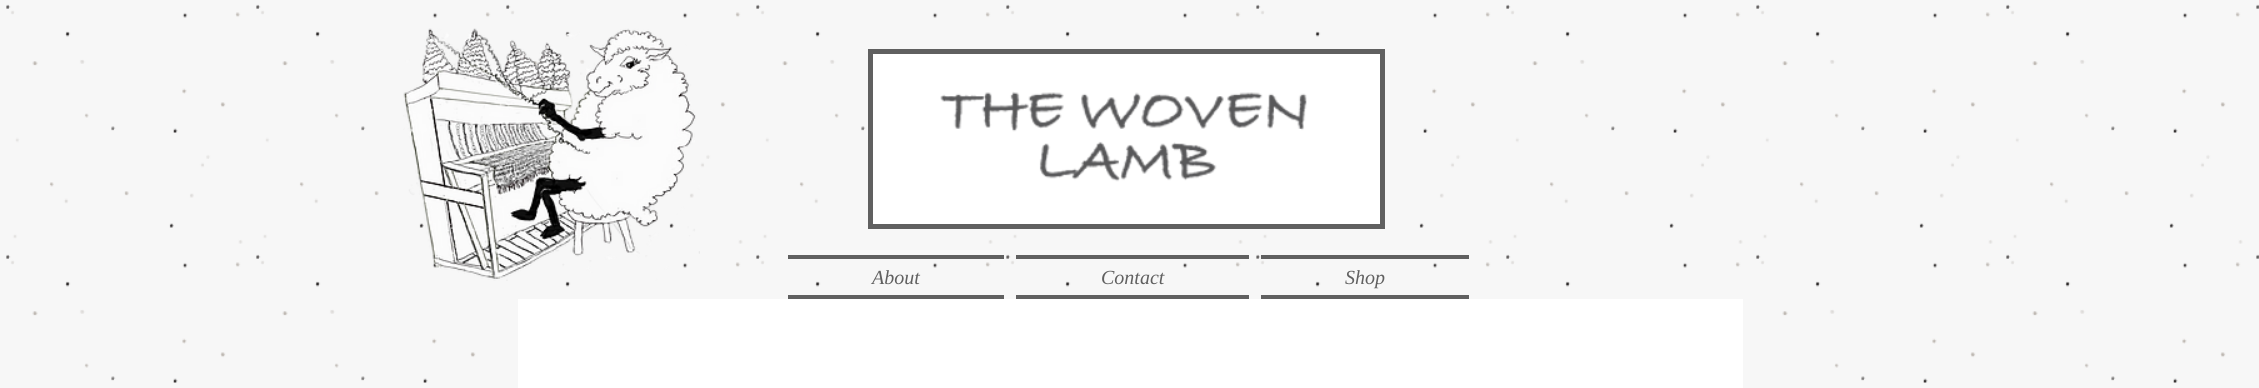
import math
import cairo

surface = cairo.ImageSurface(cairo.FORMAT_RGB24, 2259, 388)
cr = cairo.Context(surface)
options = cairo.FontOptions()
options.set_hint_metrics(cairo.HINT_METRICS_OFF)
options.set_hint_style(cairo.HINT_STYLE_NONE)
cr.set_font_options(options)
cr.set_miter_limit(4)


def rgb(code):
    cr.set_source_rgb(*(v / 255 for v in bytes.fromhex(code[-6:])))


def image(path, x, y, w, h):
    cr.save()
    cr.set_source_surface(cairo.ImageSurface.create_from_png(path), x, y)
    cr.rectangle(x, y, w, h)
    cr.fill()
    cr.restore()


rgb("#f7f7f7")
cr.paint()
image("img/1.png", 6, 4, 2253, 379)
image("img/2.png", 403, 28, 297, 253)
rgb("#ffffff")
cr.rectangle(870.5, 51.5, 512, 175)
cr.fill_preserve()
rgb("#606060")
cr.set_line_width(5)
cr.stroke()
image("img/3.png", 940, 91, 367, 91)
for x, y, w, h, color in [
    (788, 255, 216, 4, "#606060"),
    (788, 295, 216, 4, "#606060"),
    (1016, 255, 233, 4, "#606060"),
    (1016, 295, 233, 4, "#606060"),
    (1261, 255, 208, 4, "#606060"),
    (1261, 295, 208, 4, "#606060"),
    (518, 299, 1225, 89, "#ffffff"),
]:
    rgb(color)
    cr.rectangle(x, y, w, h)
    cr.fill()
cr.select_font_face("Liberation Serif", cairo.FONT_SLANT_ITALIC)
cr.set_font_size(20)
rgb("#606060")
for x, y, s in [
    (872, 284, "About"),
    (1101, 284, "Contact"),
    (1345, 284, "Shop"),
]:
    cr.move_to(x, y)
    cr.show_text(s)
surface.write_to_png("page.png")
